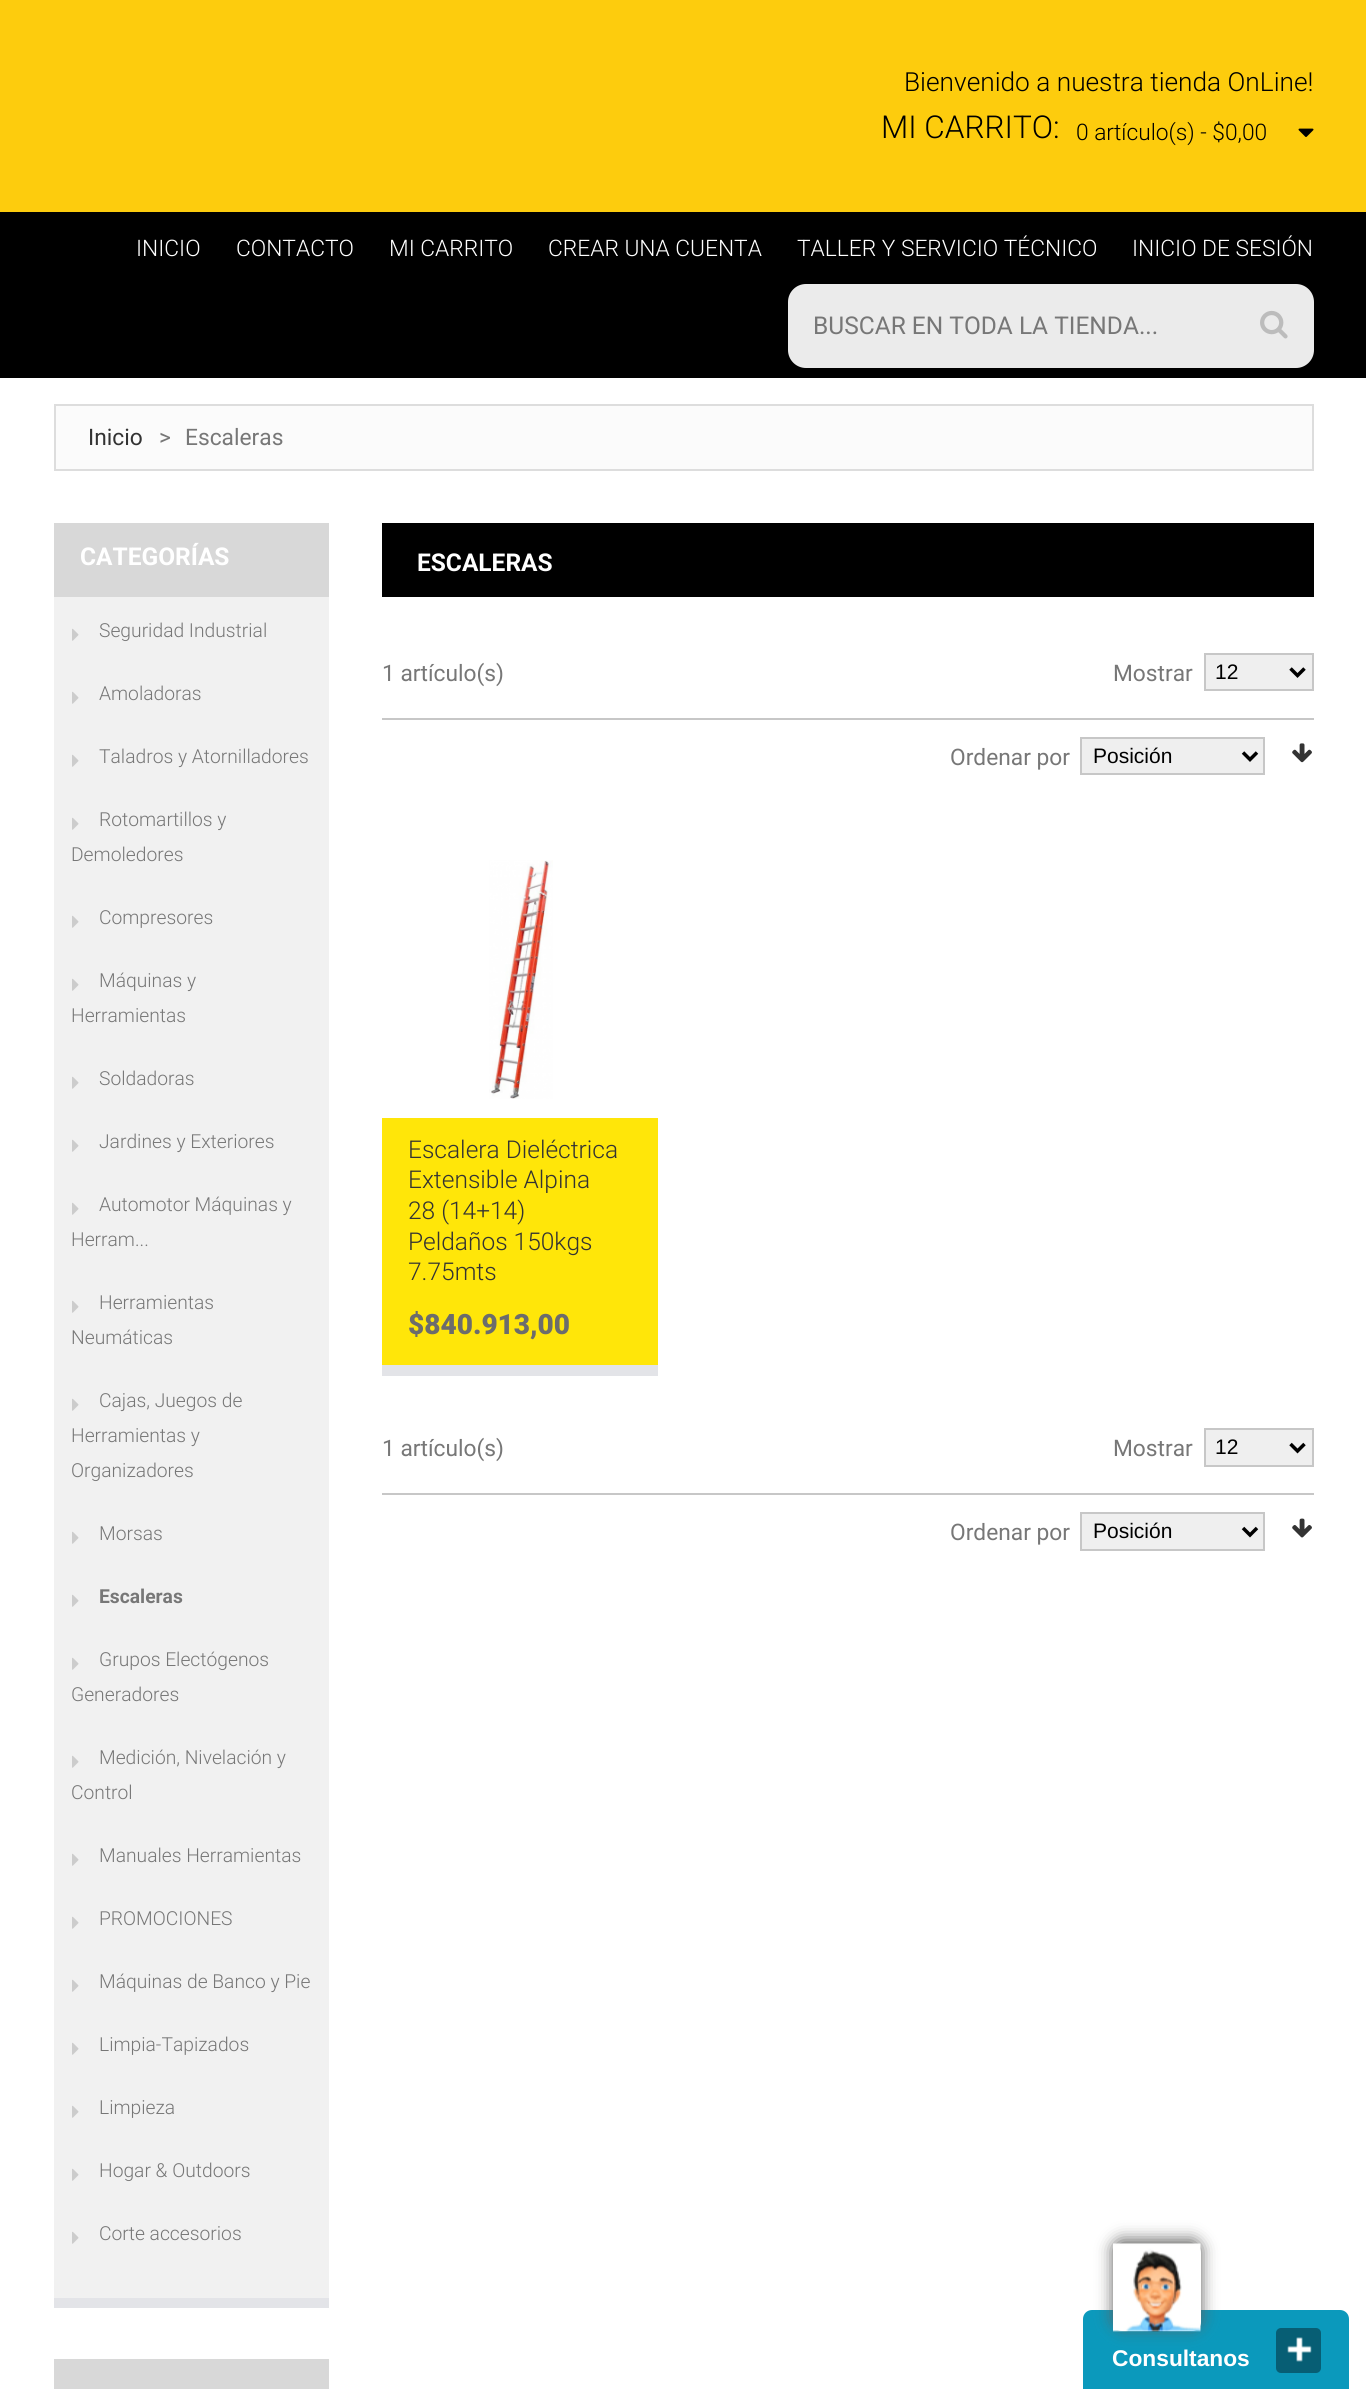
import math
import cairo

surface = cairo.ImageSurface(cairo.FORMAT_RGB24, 1366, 2389)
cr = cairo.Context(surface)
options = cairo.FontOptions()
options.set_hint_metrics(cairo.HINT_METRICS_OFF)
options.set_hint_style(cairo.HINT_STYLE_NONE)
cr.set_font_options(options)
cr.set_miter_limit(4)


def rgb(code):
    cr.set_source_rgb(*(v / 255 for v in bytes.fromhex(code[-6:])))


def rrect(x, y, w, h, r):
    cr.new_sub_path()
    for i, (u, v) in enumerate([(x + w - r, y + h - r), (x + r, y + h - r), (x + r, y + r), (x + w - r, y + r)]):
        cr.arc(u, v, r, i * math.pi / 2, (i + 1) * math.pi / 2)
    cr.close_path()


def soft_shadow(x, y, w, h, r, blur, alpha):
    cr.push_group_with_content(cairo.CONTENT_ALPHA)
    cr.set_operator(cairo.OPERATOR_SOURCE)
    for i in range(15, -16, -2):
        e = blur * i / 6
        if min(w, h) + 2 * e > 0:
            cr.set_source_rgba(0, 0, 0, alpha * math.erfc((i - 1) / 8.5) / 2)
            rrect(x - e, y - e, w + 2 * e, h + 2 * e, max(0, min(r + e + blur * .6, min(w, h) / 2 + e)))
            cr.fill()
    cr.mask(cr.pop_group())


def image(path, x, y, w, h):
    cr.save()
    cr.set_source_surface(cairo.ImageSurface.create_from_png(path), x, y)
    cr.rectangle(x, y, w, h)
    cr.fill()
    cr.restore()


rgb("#fdcc0d")
cr.paint()
image("img/1.png", 1298, 128, 16, 9)
rgb("#000000")
cr.rectangle(0, 212, 1366, 166)
cr.fill()
rgb("#ebebeb")
rrect(788, 284, 526, 84, 18)
cr.fill()
image("img/2.png", 1260, 310, 28, 29)
rgb("#ffffff")
cr.rectangle(0, 378, 1366, 2011)
cr.fill()
rgb("#fbfbfb")
cr.rectangle(55, 405, 1258, 65)
cr.fill_preserve()
rgb("#dddddd")
cr.stroke()
for x, y, w, h, color in [
    (54, 2298, 275, 10, "#e3e4e8"),
    (54, 523, 275, 74, "#d8d8d8"),
    (54, 597, 275, 1701, "#f1f1f1"),
]:
    rgb(color)
    cr.rectangle(x, y, w, h)
    cr.fill()
image("img/3.png", 72, 628, 7, 13)
image("img/3.png", 72, 691, 7, 13)
image("img/3.png", 72, 754, 7, 13)
image("img/3.png", 72, 817, 7, 13)
image("img/3.png", 72, 915, 7, 13)
image("img/3.png", 72, 978, 7, 13)
image("img/3.png", 72, 1076, 7, 13)
image("img/3.png", 72, 1139, 7, 13)
image("img/3.png", 72, 1202, 7, 13)
image("img/3.png", 72, 1300, 7, 13)
image("img/3.png", 72, 1398, 7, 13)
image("img/3.png", 72, 1531, 7, 13)
image("img/3.png", 72, 1594, 7, 13)
image("img/3.png", 72, 1657, 7, 13)
image("img/3.png", 72, 1755, 7, 13)
image("img/3.png", 72, 1853, 7, 13)
image("img/3.png", 72, 1916, 7, 13)
image("img/3.png", 72, 1979, 7, 13)
image("img/3.png", 72, 2042, 7, 13)
image("img/3.png", 72, 2105, 7, 13)
image("img/3.png", 72, 2168, 7, 13)
image("img/3.png", 72, 2231, 7, 13)
for x, y, w, h, color in [
    (54, 2359, 275, 30, "#d8d8d8"),
    (382, 523, 932, 74, "#000000"),
    (382, 718, 932, 2, "#c7c7c7"),
]:
    rgb(color)
    cr.rectangle(x, y, w, h)
    cr.fill()
rgb("#efefef")
cr.rectangle(1205, 654, 108, 36)
cr.fill_preserve()
rgb("#c7c7c7")
cr.stroke()
cr.new_path()
cr.move_to(1290.5, 668.5)
cr.line_to(1297.5, 675.5)
cr.line_to(1304.5, 668.5)
rgb("#000000")
cr.set_line_width(3.5)
cr.stroke()
rgb("#efefef")
cr.rectangle(1081, 738, 183, 36)
cr.fill_preserve()
rgb("#c7c7c7")
cr.set_line_width(2)
cr.stroke()
cr.new_path()
cr.move_to(1243, 752.5)
cr.line_to(1250, 759.5)
cr.line_to(1257, 752.5)
rgb("#000000")
cr.set_line_width(3.5)
cr.stroke()
image("img/4.png", 1292, 743, 20, 20)
rgb("#e3e4e8")
cr.rectangle(382, 1365, 276, 11)
cr.fill()
image("img/5.png", 489, 860, 64, 239)
rgb("#ffe609")
cr.rectangle(382, 1118, 276, 247)
cr.fill()
rgb("#c7c7c7")
cr.rectangle(382, 1493, 932, 2)
cr.fill()
rgb("#efefef")
cr.rectangle(1205, 1429, 108, 37)
cr.fill_preserve()
rgb("#c7c7c7")
cr.set_line_width(2)
cr.stroke()
cr.new_path()
cr.move_to(1290.5, 1444)
cr.line_to(1297.5, 1451)
cr.line_to(1304.5, 1444)
rgb("#000000")
cr.set_line_width(3.5)
cr.stroke()
rgb("#efefef")
cr.rectangle(1081, 1513, 183, 37)
cr.fill_preserve()
rgb("#c7c7c7")
cr.set_line_width(2)
cr.stroke()
cr.new_path()
cr.move_to(1243, 1528)
cr.line_to(1250, 1535)
cr.line_to(1257, 1528)
rgb("#000000")
cr.set_line_width(3.5)
cr.stroke()
image("img/6.png", 1292, 1518, 20, 20)
rgb("#0b99bc")
cr.new_path()
cr.move_to(1092, 2310)
cr.line_to(1340, 2310)
cr.curve_to(1345, 2310, 1349, 2314, 1349, 2319)
cr.line_to(1349, 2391)
cr.line_to(1083, 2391)
cr.line_to(1083, 2319)
cr.curve_to(1083, 2314, 1087, 2310, 1092, 2310)
cr.close_path()
cr.fill()
rgb("#5f5f5e")
soft_shadow(1113, 2240, 88, 88, 9, 8, 1)
rgb("#ffffff")
rrect(1113, 2244, 88, 87, 9)
cr.fill()
image("img/7.png", 1113, 2243, 88, 89)
rgb("#075e74")
rrect(1276, 2328, 45, 45, 5)
cr.fill()
image("img/8.png", 1287, 2337, 25, 25)
cr.select_font_face("Roboto Light")
cr.set_font_size(26.25)
rgb("#000000")
cr.move_to(904, 91)
cr.show_text("Bienvenido a nuestra tienda OnLine!")
cr.set_font_size(31.5)
cr.move_to(881, 138)
cr.show_text("MI CARRITO:")
cr.set_font_size(22.75)
cr.move_to(1076, 140)
cr.show_text("0 artículo(s) - $0,00")
rgb("#ffffff")
for x, y, s in [
    (136, 256, "INICIO"),
    (236, 256, "CONTACTO"),
    (389, 256, "MI CARRITO"),
    (548, 256, "CREAR UNA CUENTA"),
    (797, 256, "TALLER Y SERVICIO TÉCNICO"),
    (1132, 256, "INICIO DE SESIÓN"),
]:
    cr.move_to(x, y)
    cr.show_text(s)
cr.select_font_face("Roboto")
cr.set_font_size(24.5)
rgb("#777777")
cr.move_to(813, 334)
cr.show_text("BUSCAR EN TODA LA TIENDA...")
cr.set_font_size(22.75)
rgb("#333333")
cr.move_to(88, 445)
cr.show_text("Inicio")
rgb("#777777")
cr.move_to(159, 445)
cr.show_text(">")
cr.move_to(185, 445)
cr.show_text("Escaleras")
cr.select_font_face("Roboto", cairo.FONT_SLANT_NORMAL, cairo.FONT_WEIGHT_BOLD)
cr.set_font_size(24.5)
rgb("#ffffff")
cr.move_to(80, 565)
cr.show_text("CATEGORÍAS")
cr.select_font_face("Roboto Light")
cr.set_font_size(19.25)
rgb("#777777")
for x, y, s in [
    (99, 637, "Seguridad Industrial"),
    (99, 700, "Amoladoras"),
    (99, 763, "Taladros y Atornilladores"),
    (99, 826, "Rotomartillos y"),
    (71, 861, "Demoledores"),
    (99, 924, "Compresores"),
    (99, 987, "Máquinas y"),
    (71, 1022, "Herramientas"),
    (99, 1085, "Soldadoras"),
    (99, 1148, "Jardines y Exteriores"),
    (99, 1211, "Automotor Máquinas y"),
    (71, 1246, "Herram..."),
    (99, 1309, "Herramientas"),
    (71, 1344, "Neumáticas"),
    (99, 1407, "Cajas, Juegos de"),
    (71, 1442, "Herramientas y"),
    (71, 1477, "Organizadores"),
    (99, 1540, "Morsas"),
]:
    cr.move_to(x, y)
    cr.show_text(s)
cr.select_font_face("Roboto", cairo.FONT_SLANT_NORMAL, cairo.FONT_WEIGHT_BOLD)
cr.move_to(99, 1603)
cr.show_text("Escaleras")
cr.select_font_face("Roboto Light")
for x, y, s in [
    (99, 1666, "Grupos Electógenos"),
    (71, 1701, "Generadores"),
    (99, 1764, "Medición, Nivelación y"),
    (71, 1799, "Control"),
    (99, 1862, "Manuales Herramientas"),
    (99, 1925, "PROMOCIONES"),
    (99, 1988, "Máquinas de Banco y Pie"),
    (99, 2051, "Limpia-Tapizados"),
    (99, 2114, "Limpieza"),
    (99, 2177, "Hogar & Outdoors"),
    (99, 2240, "Corte accesorios"),
]:
    cr.move_to(x, y)
    cr.show_text(s)
cr.select_font_face("Roboto", cairo.FONT_SLANT_NORMAL, cairo.FONT_WEIGHT_BOLD)
cr.set_font_size(24.5)
rgb("#ffffff")
cr.move_to(417, 571)
cr.show_text("ESCALERAS")
cr.select_font_face("Roboto")
cr.set_font_size(22.75)
rgb("#777777")
cr.move_to(382, 681)
cr.show_text("1 artículo(s)")
cr.move_to(1113, 681)
cr.show_text("Mostrar")
cr.select_font_face("Liberation Sans")
cr.set_font_size(21)
rgb("#000000")
cr.move_to(1215, 679)
cr.show_text("12")
cr.select_font_face("Roboto")
cr.set_font_size(22.75)
rgb("#777777")
cr.move_to(950, 765)
cr.show_text("Ordenar por")
cr.select_font_face("Liberation Sans")
cr.set_font_size(21)
rgb("#000000")
cr.move_to(1093, 763)
cr.show_text("Posición")
cr.select_font_face("Roboto Light")
cr.set_font_size(24.5)
rgb("#333333")
for x, y, s in [
    (408, 1158, "Escalera Dieléctrica"),
    (408, 1188, "Extensible Alpina"),
    (408, 1219, "28 (14+14)"),
    (408, 1250, "Peldaños 150kgs"),
    (408, 1280, "7.75mts"),
]:
    cr.move_to(x, y)
    cr.show_text(s)
cr.select_font_face("Roboto Black")
cr.set_font_size(28)
rgb("#6c6c6c")
cr.move_to(408, 1334)
cr.show_text("$840.913,00")
cr.select_font_face("Roboto")
cr.set_font_size(22.75)
rgb("#777777")
cr.move_to(382, 1456)
cr.show_text("1 artículo(s)")
cr.move_to(1113, 1456)
cr.show_text("Mostrar")
cr.select_font_face("Liberation Sans")
cr.set_font_size(21)
rgb("#000000")
cr.move_to(1215, 1454)
cr.show_text("12")
cr.select_font_face("Roboto")
cr.set_font_size(22.75)
rgb("#777777")
cr.move_to(950, 1540)
cr.show_text("Ordenar por")
cr.select_font_face("Liberation Sans")
cr.set_font_size(21)
rgb("#000000")
cr.move_to(1093, 1538)
cr.show_text("Posición")
cr.select_font_face("Liberation Sans", cairo.FONT_SLANT_NORMAL, cairo.FONT_WEIGHT_BOLD)
cr.set_font_size(22.75)
rgb("#ffffff")
cr.move_to(1112, 2366)
cr.show_text("Consultanos")
surface.write_to_png("page.png")
